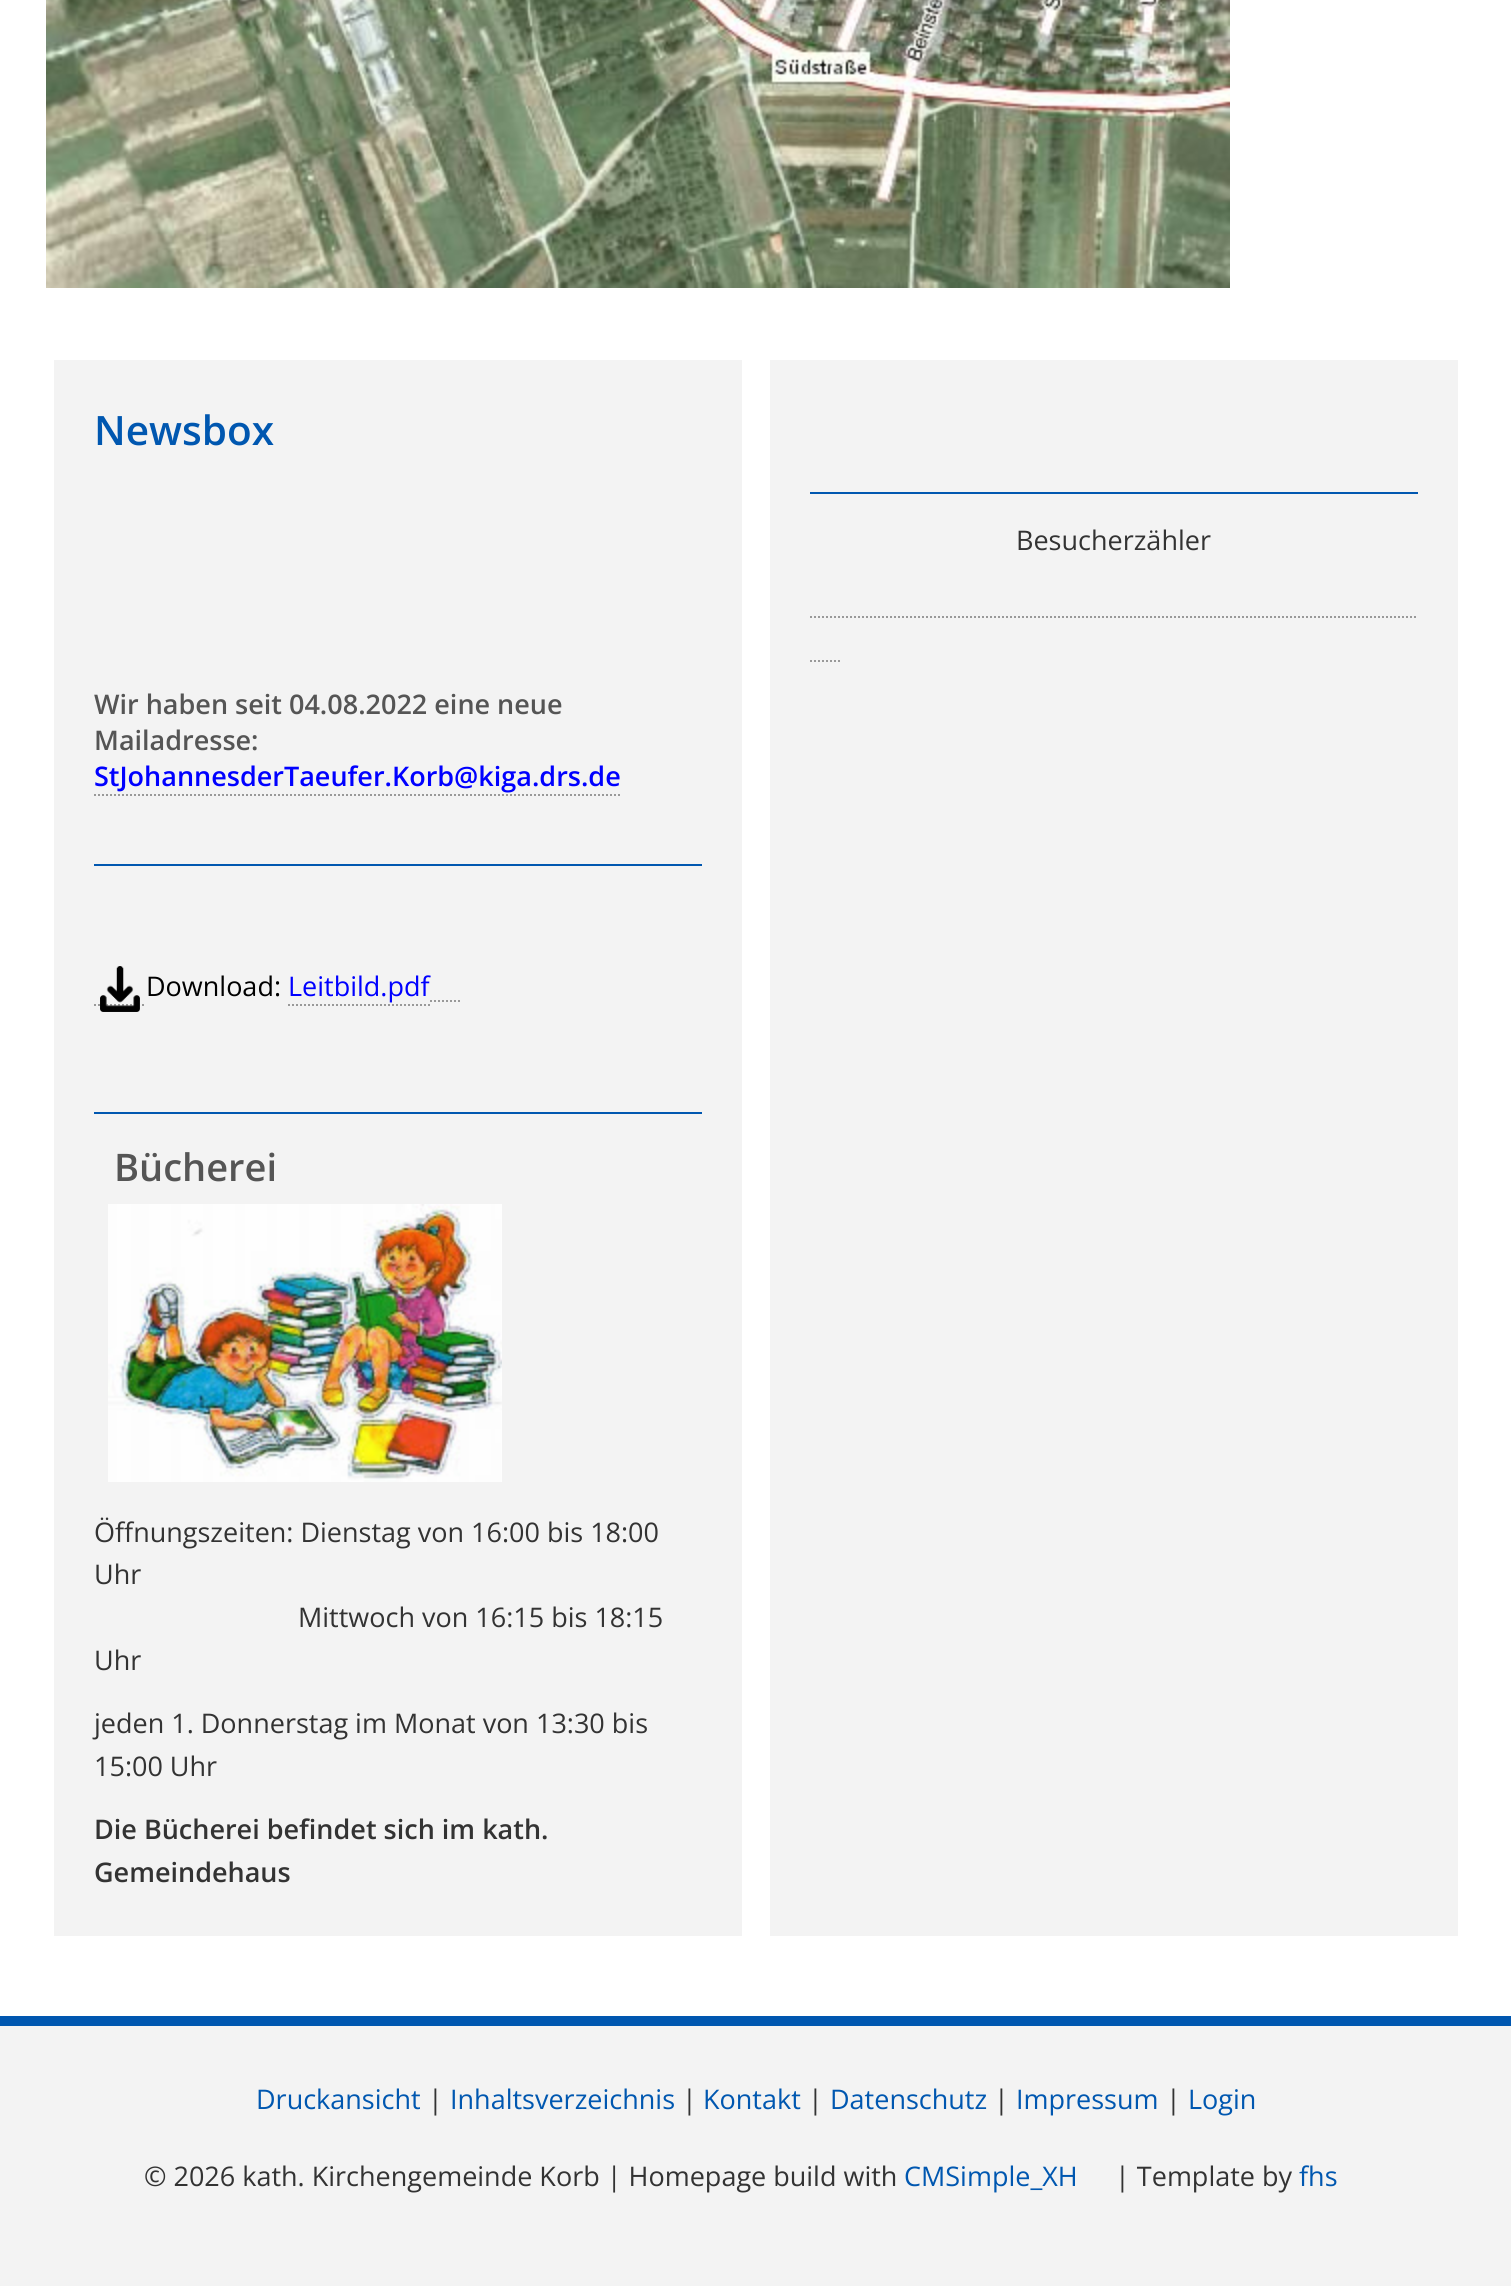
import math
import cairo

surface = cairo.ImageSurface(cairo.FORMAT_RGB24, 1511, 2286)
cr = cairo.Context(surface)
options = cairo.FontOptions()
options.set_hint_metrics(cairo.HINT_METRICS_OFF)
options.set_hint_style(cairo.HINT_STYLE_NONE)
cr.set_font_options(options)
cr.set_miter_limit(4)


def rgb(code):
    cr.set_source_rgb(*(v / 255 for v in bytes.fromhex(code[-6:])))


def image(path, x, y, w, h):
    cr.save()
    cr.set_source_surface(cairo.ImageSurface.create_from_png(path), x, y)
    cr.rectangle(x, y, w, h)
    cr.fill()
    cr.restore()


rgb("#ffffff")
cr.paint()
image("img/1.png", 46, 0, 1184, 288)
rgb("#f3f3f3")
cr.rectangle(54, 360, 688, 1576)
cr.fill()
cr.new_path()
cr.move_to(94, 795)
cr.line_to(622, 795)
rgb("#999999")
cr.set_dash([2, 2])
cr.stroke()
rgb("#0057b0")
cr.rectangle(94, 864, 608, 2)
cr.fill()
cr.new_path()
cr.move_to(94, 1005)
cr.line_to(146, 1005)
rgb("#999999")
cr.stroke()
image("img/2.png", 100, 966, 40, 46)
cr.new_path()
cr.move_to(288, 1005)
cr.line_to(430, 1005)
cr.stroke()
cr.new_path()
cr.move_to(430, 1001)
cr.line_to(460, 1001)
cr.stroke()
rgb("#0057b0")
cr.rectangle(94, 1112, 608, 2)
cr.fill()
image("img/3.png", 108, 1204, 394, 278)
rgb("#f3f3f3")
cr.rectangle(770, 360, 688, 1576)
cr.fill()
rgb("#0057b0")
cr.rectangle(810, 492, 608, 2)
cr.fill()
cr.new_path()
cr.move_to(810, 617)
cr.line_to(1418, 617)
rgb("#999999")
cr.stroke()
cr.new_path()
cr.move_to(810, 661)
cr.line_to(840, 661)
cr.stroke()
rgb("#f3f3f3")
cr.rectangle(0, 2026, 1511, 260)
cr.fill()
rgb("#0057b0")
cr.rectangle(0, 2016, 1511, 10)
cr.fill()
cr.select_font_face("Open Sans SemiBold")
cr.set_font_size(40.5)
cr.move_to(94, 445)
cr.show_text("Newsbox")
cr.set_font_size(27)
rgb("#555555")
cr.move_to(94, 714)
cr.show_text("Wir haben seit 04.08.2022 eine neue")
cr.move_to(94, 750)
cr.show_text("Mailadresse:")
rgb("#0000ff")
cr.move_to(94, 786)
cr.show_text("StJohannesderTaeufer.Korb@kiga.drs.de")
cr.select_font_face("Open Sans")
rgb("#000000")
cr.move_to(146, 996)
cr.show_text("Download:")
rgb("#0000ff")
cr.move_to(288, 996)
cr.show_text("Leitbild.pdf")
cr.select_font_face("FontAwesome")
cr.set_font_size(24)
rgb("#7a7af9")
cr.move_to(436, 996)
cr.show_text("")
cr.select_font_face("Open Sans SemiBold")
cr.set_font_size(38)
rgb("#555555")
cr.move_to(114, 1181)
cr.show_text("Bücherei")
cr.select_font_face("Open Sans")
cr.set_font_size(27)
rgb("#333333")
for x, y, s in [
    (94, 1542, "Öffnungszeiten: Dienstag von 16:00 bis 18:00"),
    (94, 1584, "Uhr"),
    (298, 1627, "Mittwoch von 16:15 bis 18:15"),
    (94, 1670, "Uhr"),
    (94, 1733, "jeden 1. Donnerstag im Monat von 13:30 bis"),
    (94, 1776, "15:00 Uhr"),
]:
    cr.move_to(x, y)
    cr.show_text(s)
cr.select_font_face("Open Sans SemiBold")
cr.move_to(94, 1839)
cr.show_text("Die Bücherei befindet sich im kath.")
cr.move_to(94, 1882)
cr.show_text("Gemeindehaus")
cr.select_font_face("Open Sans")
cr.move_to(1016, 550)
cr.show_text("Besucherzähler")
cr.select_font_face("FontAwesome")
cr.set_font_size(24)
rgb("#adadad")
cr.move_to(816, 656)
cr.show_text("")
cr.select_font_face("Open Sans")
cr.set_font_size(27)
rgb("#0057b0")
cr.move_to(256, 2109)
cr.show_text("Druckansicht")
rgb("#333333")
cr.move_to(428, 2109)
cr.show_text("|")
rgb("#0057b0")
cr.move_to(450, 2109)
cr.show_text("Inhaltsverzeichnis")
rgb("#333333")
cr.move_to(682, 2109)
cr.show_text("|")
rgb("#0057b0")
cr.move_to(703, 2109)
cr.show_text("Kontakt")
rgb("#333333")
cr.move_to(808, 2109)
cr.show_text("|")
rgb("#0057b0")
cr.move_to(830, 2109)
cr.show_text("Datenschutz")
rgb("#333333")
cr.move_to(994, 2109)
cr.show_text("|")
rgb("#0057b0")
cr.move_to(1016, 2109)
cr.show_text("Impressum")
rgb("#333333")
cr.move_to(1166, 2109)
cr.show_text("|")
rgb("#0057b0")
cr.move_to(1188, 2109)
cr.show_text("Login")
rgb("#333333")
cr.move_to(144, 2186)
cr.show_text("© 2026 kath. Kirchengemeinde Korb | Homepage build with")
rgb("#0057b0")
cr.move_to(904, 2186)
cr.show_text("CMSimple_XH")
cr.select_font_face("FontAwesome")
cr.set_font_size(24)
rgb("#7aa5d2")
cr.move_to(1084, 2186)
cr.show_text("")
cr.select_font_face("Open Sans")
cr.set_font_size(27)
rgb("#333333")
cr.move_to(1115, 2186)
cr.show_text("| Template by")
rgb("#0057b0")
cr.move_to(1299, 2186)
cr.show_text("fhs")
cr.select_font_face("FontAwesome")
cr.set_font_size(24)
rgb("#7aa5d2")
cr.move_to(1344, 2186)
cr.show_text("")
surface.write_to_png("page.png")
